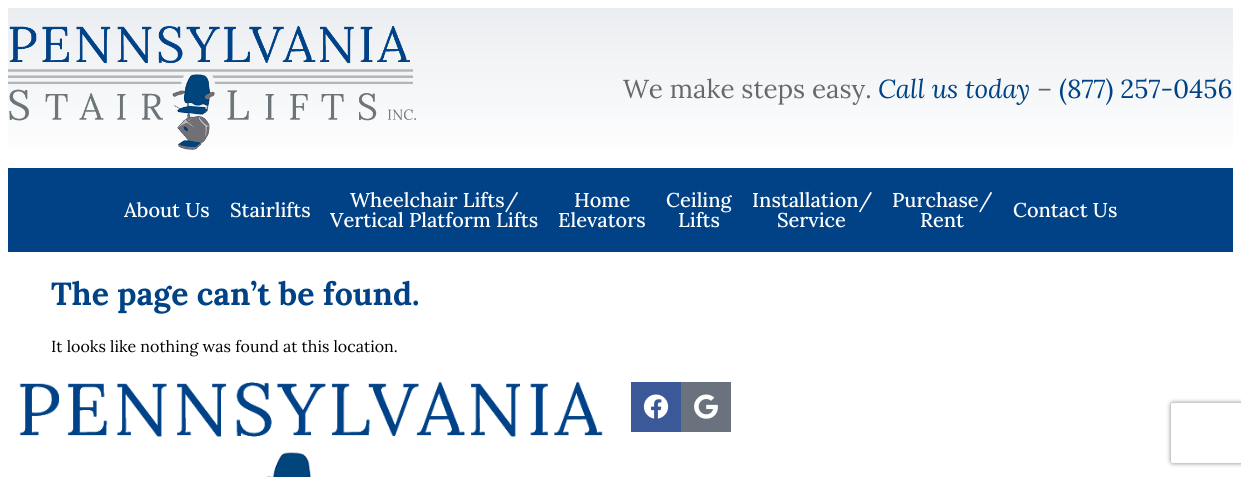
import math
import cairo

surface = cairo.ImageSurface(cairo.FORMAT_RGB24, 1241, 477)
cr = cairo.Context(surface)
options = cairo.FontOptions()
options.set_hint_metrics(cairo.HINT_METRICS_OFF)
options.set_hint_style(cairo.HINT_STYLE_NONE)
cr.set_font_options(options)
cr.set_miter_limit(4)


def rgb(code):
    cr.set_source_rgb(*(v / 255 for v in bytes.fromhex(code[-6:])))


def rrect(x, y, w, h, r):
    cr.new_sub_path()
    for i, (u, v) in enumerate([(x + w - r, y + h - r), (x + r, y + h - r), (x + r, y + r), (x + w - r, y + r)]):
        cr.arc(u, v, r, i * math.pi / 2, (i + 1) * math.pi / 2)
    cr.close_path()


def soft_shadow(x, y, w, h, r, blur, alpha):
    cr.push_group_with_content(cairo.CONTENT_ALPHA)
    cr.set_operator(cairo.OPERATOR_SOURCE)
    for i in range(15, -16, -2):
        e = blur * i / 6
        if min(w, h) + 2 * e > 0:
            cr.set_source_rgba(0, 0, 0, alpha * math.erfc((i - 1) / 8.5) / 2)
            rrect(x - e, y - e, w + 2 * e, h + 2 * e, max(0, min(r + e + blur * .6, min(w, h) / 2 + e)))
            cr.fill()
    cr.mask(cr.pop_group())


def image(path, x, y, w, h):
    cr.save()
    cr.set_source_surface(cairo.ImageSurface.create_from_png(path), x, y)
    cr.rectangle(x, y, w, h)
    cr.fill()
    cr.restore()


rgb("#ffffff")
cr.paint()
gradient = cairo.LinearGradient(621, 8, 621, 168)
gradient.add_color_stop_rgba(0, 0.922, 0.933, 0.945, 1)
gradient.add_color_stop_rgba(1, 1, 1, 1, 1)
cr.set_source(gradient)
cr.rectangle(8, 8, 1225, 140)
cr.fill()
image("img/1.png", 8, 26, 408, 124)
rgb("#014286")
cr.rectangle(8, 168, 1225, 84)
cr.fill()
image("img/2.png", 19, 382, 584, 95)
rgb("#3b5998")
cr.rectangle(631, 382, 50, 50)
cr.fill()
image("img/3.png", 643, 394, 26, 25)
rgb("#69727d")
cr.rectangle(681, 382, 50, 50)
cr.fill()
image("img/4.png", 694, 394, 24, 25)
cr.save()
cr.set_fill_rule(cairo.FILL_RULE_EVEN_ODD)
cr.new_path()
cr.move_to(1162, 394)
cr.line_to(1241, 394)
cr.line_to(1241, 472)
cr.line_to(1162, 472)
cr.close_path()
cr.move_to(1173, 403)
cr.line_to(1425, 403)
cr.curve_to(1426, 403, 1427, 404, 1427, 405)
cr.line_to(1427, 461)
cr.curve_to(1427, 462, 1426, 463, 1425, 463)
cr.line_to(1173, 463)
cr.curve_to(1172, 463, 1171, 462, 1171, 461)
cr.line_to(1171, 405)
cr.curve_to(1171, 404, 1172, 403, 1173, 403)
cr.close_path()
cr.clip()
rgb("#808080")
soft_shadow(1171, 403, 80, 60, 2, 2.5, 1)
cr.restore()
cr.select_font_face("Lora")
cr.set_font_size(26)
rgb("#686868")
cr.move_to(623, 98)
cr.show_text("We make steps easy.")
cr.select_font_face("Lora", cairo.FONT_SLANT_ITALIC)
rgb("#004286")
cr.move_to(878, 98)
cr.show_text("Call us today")
cr.select_font_face("Lora")
rgb("#686868")
cr.move_to(1037, 98)
cr.show_text("–")
rgb("#004286")
cr.move_to(1059, 98)
cr.show_text("(877) 257-0456")
cr.select_font_face("Lora Medium")
cr.set_font_size(20)
rgb("#ffffff")
for x, y, s in [
    (124, 217, "About Us"),
    (230, 217, "Stairlifts"),
    (350, 207, "Wheelchair Lifts/"),
    (330, 227, "Vertical Platform Lifts"),
    (574, 207, "Home"),
    (558, 227, "Elevators"),
    (666, 207, "Ceiling"),
    (678, 227, "Lifts"),
    (752, 207, "Installation/"),
    (777, 227, "Service"),
    (892, 207, "Purchase/"),
    (920, 227, "Rent"),
    (1013, 217, "Contact Us"),
]:
    cr.move_to(x, y)
    cr.show_text(s)
cr.select_font_face("Lora", cairo.FONT_SLANT_NORMAL, cairo.FONT_WEIGHT_BOLD)
cr.set_font_size(32)
rgb("#004286")
cr.move_to(51, 305)
cr.show_text("The page can’t be found.")
cr.select_font_face("Lora")
cr.set_font_size(16)
rgb("#000000")
cr.move_to(51, 352)
cr.show_text("It looks like nothing was found at this location.")
surface.write_to_png("page.png")
